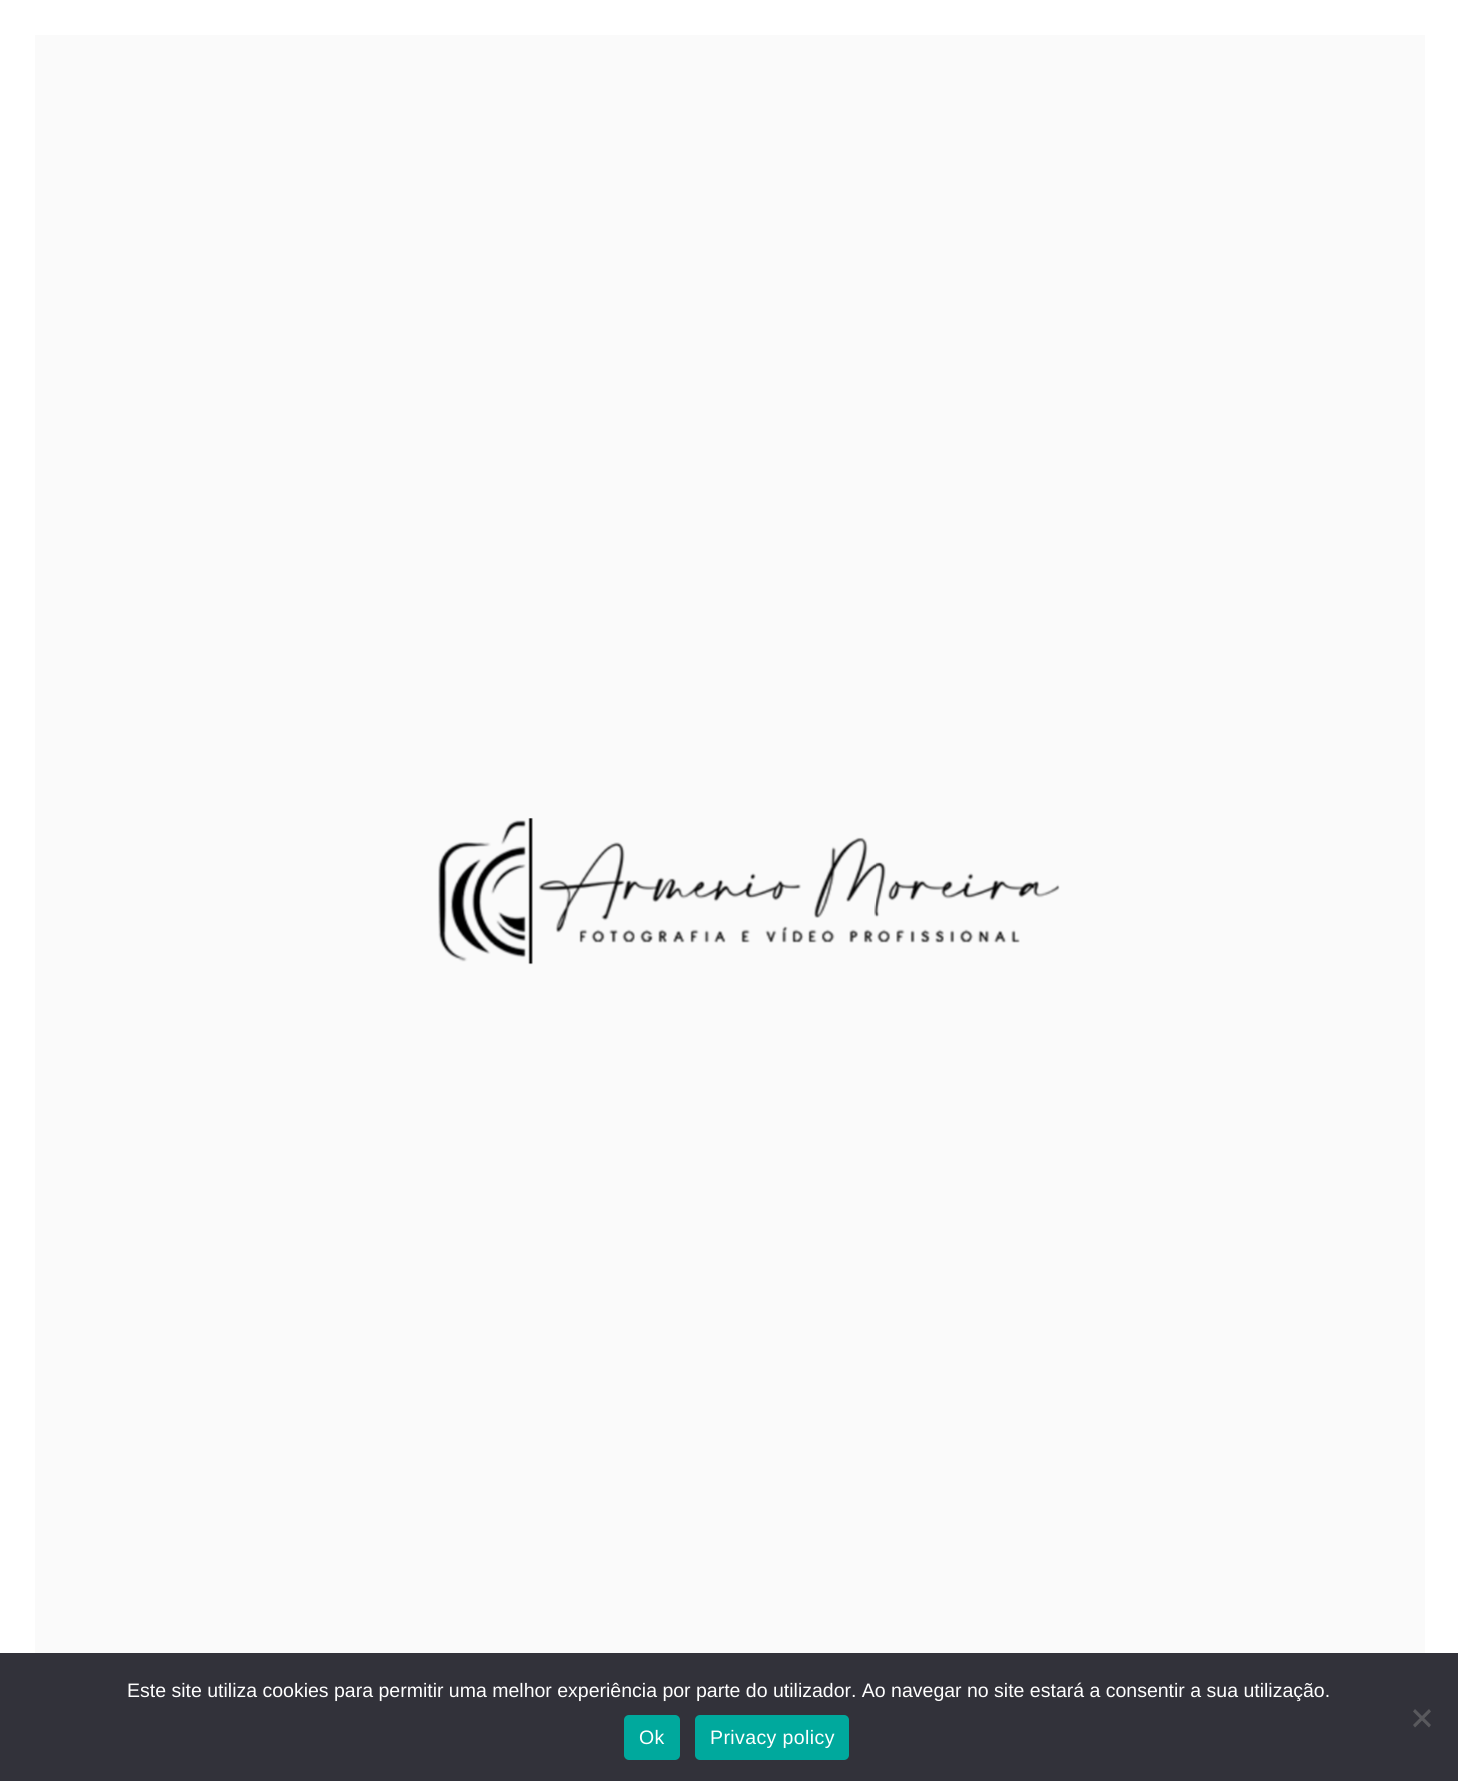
import math
import cairo

surface = cairo.ImageSurface(cairo.FORMAT_RGB24, 1458, 1781)
cr = cairo.Context(surface)
options = cairo.FontOptions()
options.set_hint_metrics(cairo.HINT_METRICS_OFF)
options.set_hint_style(cairo.HINT_STYLE_NONE)
cr.set_font_options(options)
cr.set_miter_limit(4)


def rgb(code):
    cr.set_source_rgb(*(v / 255 for v in bytes.fromhex(code[-6:])))


def tracked(x, y, s, letter, word):
    cr.move_to(x, y)
    for ch in s:
        cr.show_text(ch)
        cr.rel_move_to(letter + word * (ch == ' '), 0)


def rrect(x, y, w, h, r):
    cr.new_sub_path()
    for i, (u, v) in enumerate([(x + w - r, y + h - r), (x + r, y + h - r), (x + r, y + r), (x + w - r, y + r)]):
        cr.arc(u, v, r, i * math.pi / 2, (i + 1) * math.pi / 2)
    cr.close_path()


def image(path, x, y, w, h):
    cr.save()
    cr.set_source_surface(cairo.ImageSurface.create_from_png(path), x, y)
    cr.rectangle(x, y, w, h)
    cr.fill()
    cr.restore()


rgb("#ffffff")
cr.paint()
rgb("#fafafa")
cr.rectangle(35, 35, 1390, 1618)
cr.fill()
image("img/1.png", 438, 818, 622, 147)
rgb("#32323a")
cr.rectangle(0, 1653, 1458, 128)
cr.fill()
rgb("#59595d")
cr.new_path()
cr.move_to(1429, 1709)
cr.line_to(1431, 1711.5)
cr.line_to(1415, 1727.5)
cr.line_to(1413, 1725)
cr.close_path()
cr.fill()
cr.new_path()
cr.move_to(1413, 1711.5)
cr.line_to(1415, 1709)
cr.line_to(1431, 1725)
cr.line_to(1429, 1727.5)
cr.close_path()
cr.fill()
rgb("#00a99d")
rrect(624, 1715, 56, 45, 5)
cr.fill()
rrect(695, 1715, 154, 45, 5)
cr.fill()
cr.select_font_face("Liberation Sans")
cr.set_font_size(19.5)
rgb("#ffffff")
cr.move_to(127, 1697)
cr.show_text("Este site utiliza cookies para permitir uma melhor experiência por parte do utilizador. Ao navegar no site estará a consentir a sua utilização.")
tracked(639, 1744, "Ok", 0.4, 0)
tracked(710, 1744, "Privacy policy", 0.4, 0)
surface.write_to_png("page.png")
